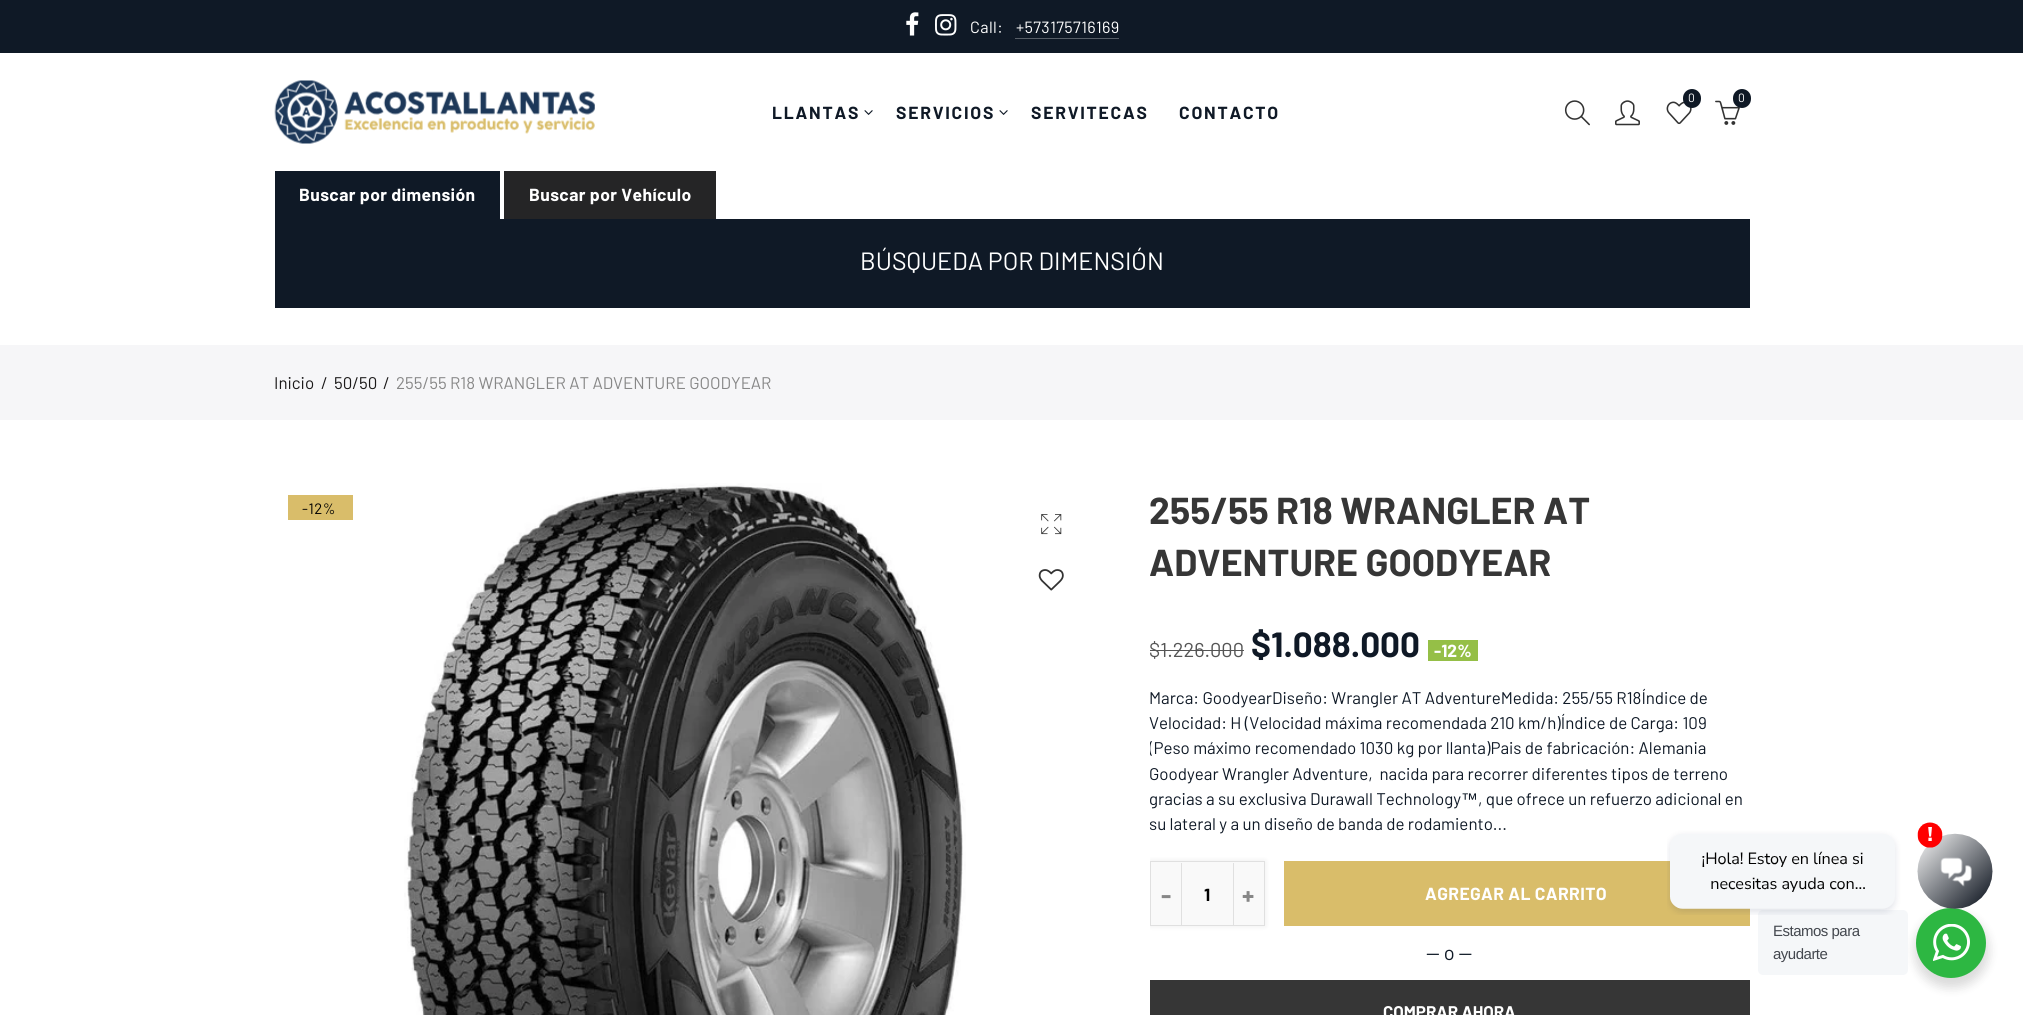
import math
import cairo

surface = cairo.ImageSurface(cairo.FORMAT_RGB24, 2023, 1015)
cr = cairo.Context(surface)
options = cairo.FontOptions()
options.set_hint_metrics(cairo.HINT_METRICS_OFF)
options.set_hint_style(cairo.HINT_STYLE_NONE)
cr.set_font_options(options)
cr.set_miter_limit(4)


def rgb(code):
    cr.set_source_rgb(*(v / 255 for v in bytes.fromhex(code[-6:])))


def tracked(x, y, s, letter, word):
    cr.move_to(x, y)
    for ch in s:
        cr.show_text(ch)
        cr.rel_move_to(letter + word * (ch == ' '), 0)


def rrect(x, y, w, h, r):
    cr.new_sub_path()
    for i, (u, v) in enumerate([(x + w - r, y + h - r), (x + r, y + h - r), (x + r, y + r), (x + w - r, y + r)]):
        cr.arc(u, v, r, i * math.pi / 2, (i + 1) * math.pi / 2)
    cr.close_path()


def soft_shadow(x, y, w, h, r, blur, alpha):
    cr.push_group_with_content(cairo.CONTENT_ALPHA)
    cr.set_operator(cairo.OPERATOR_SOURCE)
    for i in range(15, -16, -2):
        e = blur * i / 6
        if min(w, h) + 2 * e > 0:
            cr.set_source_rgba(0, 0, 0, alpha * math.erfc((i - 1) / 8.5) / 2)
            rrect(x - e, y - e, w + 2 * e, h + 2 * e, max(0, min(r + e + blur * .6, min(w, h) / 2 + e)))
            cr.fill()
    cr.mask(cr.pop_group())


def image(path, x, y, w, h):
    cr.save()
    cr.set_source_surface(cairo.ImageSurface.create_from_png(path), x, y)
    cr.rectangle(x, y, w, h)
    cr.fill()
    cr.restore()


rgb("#ffffff")
cr.paint()
rgb("#0f1926")
cr.rectangle(0, 0, 2023, 53)
cr.fill()
image("img/1.png", 906, 12, 13, 24)
image("img/2.png", 935, 14, 22, 22)
rgb("#575e67")
cr.rectangle(1015, 38, 104, 1)
cr.fill()
image("img/3.png", 274, 80, 321, 64)
image("img/4.png", 1666, 101, 26, 24)
rgb("#0f1926")
rrect(1683, 89, 18, 19, 9)
cr.fill()
image("img/5.png", 1715, 100, 25, 25)
rrect(1733, 89, 18, 19, 9)
cr.fill()
image("img/6.png", 1564, 100, 26, 26)
image("img/7.png", 1615, 100, 25, 26)
image("img/8.png", 864, 110, 9, 5)
image("img/8.png", 999, 110, 9, 5)
for x, y, w, h, color in [
    (275, 171, 225, 48, "#0f1926"),
    (504, 171, 212, 48, "#252526"),
    (275, 219, 1475, 89, "#0f1926"),
    (0, 345, 2023, 75, "#f6f6f8"),
    (288, 495, 65, 25, "#d9bd6a"),
]:
    rgb(color)
    cr.rectangle(x, y, w, h)
    cr.fill()
image("img/9.png", 404, 483, 562, 532)
image("img/10.png", 1041, 514, 21, 21)
image("img/11.png", 1038, 569, 26, 22)
rgb("#555555")
cr.rectangle(1150, 650, 94, 1)
cr.fill()
rgb("#95bf47")
cr.rectangle(1428, 640, 50, 21)
cr.fill()
cr.save()
cr.rectangle(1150, 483, 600, 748)
cr.clip()
rgb("#000000")
soft_shadow(1150, 861, 115, 65, 0, 3, 0.08)
cr.restore()
rgb("#f9f9f9")
cr.rectangle(1150.5, 861.5, 114, 64)
cr.fill_preserve()
rgb("#e0e0e0")
cr.set_line_width(1)
cr.stroke()
for x, y, w, h, color in [
    (1181, 863, 1, 62, "#e0e0e0"),
    (1233, 863, 1, 62, "#e0e0e0"),
    (1284, 861, 466, 65, "#d9bd6a"),
    (1150, 980, 600, 35, "#363636"),
]:
    rgb(color)
    cr.rectangle(x, y, w, h)
    cr.fill()
rgb("#000000")
soft_shadow(1914, 913, 75, 75, 37.5, 5, 0.14)
rgb("#f5f7f9")
rrect(1758, 910, 150, 65, 5)
cr.fill()
rgb("#2db742")
cr.arc(1951, 943, 35, 0, 2 * math.pi)
cr.fill()
image("img/12.png", 1667, 822, 326, 93)
image("img/13.png", 1933, 924, 37, 37)
cr.select_font_face("Barlow")
cr.set_font_size(16.25)
rgb("#ffffff")
tracked(970, 33, "Call:", 0.4, 0)
tracked(1016, 33, "+573175716169", 0.4, 0)
cr.set_font_size(12)
cr.move_to(1688, 102)
cr.show_text("0")
cr.move_to(1738, 102)
cr.show_text("0")
cr.select_font_face("Barlow", cairo.FONT_SLANT_NORMAL, cairo.FONT_WEIGHT_BOLD)
cr.set_font_size(17.5)
rgb("#0f1926")
for x, y, s in [
    (772, 119, "LLANTAS"),
    (896, 119, "SERVICIOS"),
    (1031, 119, "SERVITECAS"),
    (1179, 119, "CONTACTO"),
]:
    tracked(x, y, s, 1.75, 0)
rgb("#ffffff")
tracked(299, 201, "Buscar por dimensión", 0.4, 0)
tracked(529, 201, "Buscar por Vehículo", 0.4, 0)
cr.select_font_face("Barlow")
cr.set_font_size(25)
cr.move_to(860, 270)
cr.show_text("BÚSQUEDA POR DIMENSIÓN")
cr.set_font_size(16.9)
rgb("#1b1919")
for x, y, s in [
    (274, 389, "Inicio"),
    (321, 389, "/"),
    (334, 389, "50/50"),
    (383, 389, "/"),
]:
    cr.move_to(x, y)
    cr.show_text(s)
rgb("#878787")
cr.move_to(396, 389)
cr.show_text("255/55 R18 WRANGLER AT ADVENTURE GOODYEAR")
cr.set_font_size(15)
rgb("#000000")
tracked(302, 514, "-12%", 0.5, 0)
cr.select_font_face("Barlow", cairo.FONT_SLANT_NORMAL, cairo.FONT_WEIGHT_BOLD)
cr.set_font_size(37.5)
rgb("#363636")
cr.move_to(1149, 524)
cr.show_text("255/55 R18 WRANGLER AT")
cr.move_to(1149, 576)
cr.show_text("ADVENTURE GOODYEAR")
cr.select_font_face("Barlow")
cr.set_font_size(20)
rgb("#555555")
cr.move_to(1149, 657)
cr.show_text("$1.226.000")
cr.select_font_face("Barlow", cairo.FONT_SLANT_NORMAL, cairo.FONT_WEIGHT_BOLD)
cr.set_font_size(35)
rgb("#0f1926")
cr.move_to(1251, 657)
cr.show_text("$1.088.000")
cr.set_font_size(17.5)
rgb("#ffffff")
cr.move_to(1434, 657)
cr.show_text("-12%")
cr.select_font_face("Barlow")
cr.set_font_size(16.9)
rgb("#0f1926")
cr.move_to(1149, 704)
cr.show_text("Marca: GoodyearDiseño: Wrangler AT AdventureMedida: 255/55 R18Índice de")
cr.move_to(1149, 729)
cr.show_text("Velocidad: H (Velocidad máxima recomendada 210 km/h)Índice de Carga: 109")
cr.save()
cr.rectangle(1150, 483, 600, 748)
cr.clip()
cr.move_to(1149, 754)
cr.show_text("(Peso máximo recomendado 1030 kg por llanta)Pais de fabricación: Alemania")
cr.restore()
cr.move_to(1149, 780)
cr.show_text("Goodyear Wrangler Adventure,  nacida para recorrer diferentes tipos de terreno")
cr.move_to(1149, 805)
cr.show_text("gracias a su exclusiva Durawall Technology")
cr.select_font_face("Liberation Sans")
cr.move_to(1461, 805)
cr.show_text("™")
cr.select_font_face("Barlow")
cr.move_to(1478, 805)
cr.show_text(", que ofrece un refuerzo adicional en")
cr.move_to(1149, 830)
cr.show_text("su lateral y a un diseño de banda de rodamiento...")
cr.select_font_face("Barlow", cairo.FONT_SLANT_NORMAL, cairo.FONT_WEIGHT_BOLD)
cr.set_font_size(25)
rgb("#878787")
cr.move_to(1161, 904)
cr.show_text("-")
cr.set_font_size(17.5)
rgb("#000000")
cr.move_to(1204, 901)
cr.show_text("1")
cr.set_font_size(25)
rgb("#878787")
cr.move_to(1242, 904)
cr.show_text("+")
cr.set_font_size(17.5)
rgb("#ffffff")
tracked(1425, 900, "AGREGAR AL CARRITO", 0.4, 0)
cr.select_font_face("Barlow")
cr.set_font_size(20)
rgb("#0f1926")
cr.move_to(1426, 960)
cr.show_text("— o —")
cr.select_font_face("Barlow", cairo.FONT_SLANT_NORMAL, cairo.FONT_WEIGHT_BOLD)
cr.set_font_size(16.9)
rgb("#ffffff")
cr.move_to(1383, 1018)
cr.show_text("COMPRAR AHORA")
cr.select_font_face("Liberation Sans")
cr.set_font_size(15)
rgb("#43474e")
tracked(1773, 936, "Estamos para", -0.5, 0)
tracked(1773, 959, "ayudarte", -0.5, 0)
surface.write_to_png("page.png")
